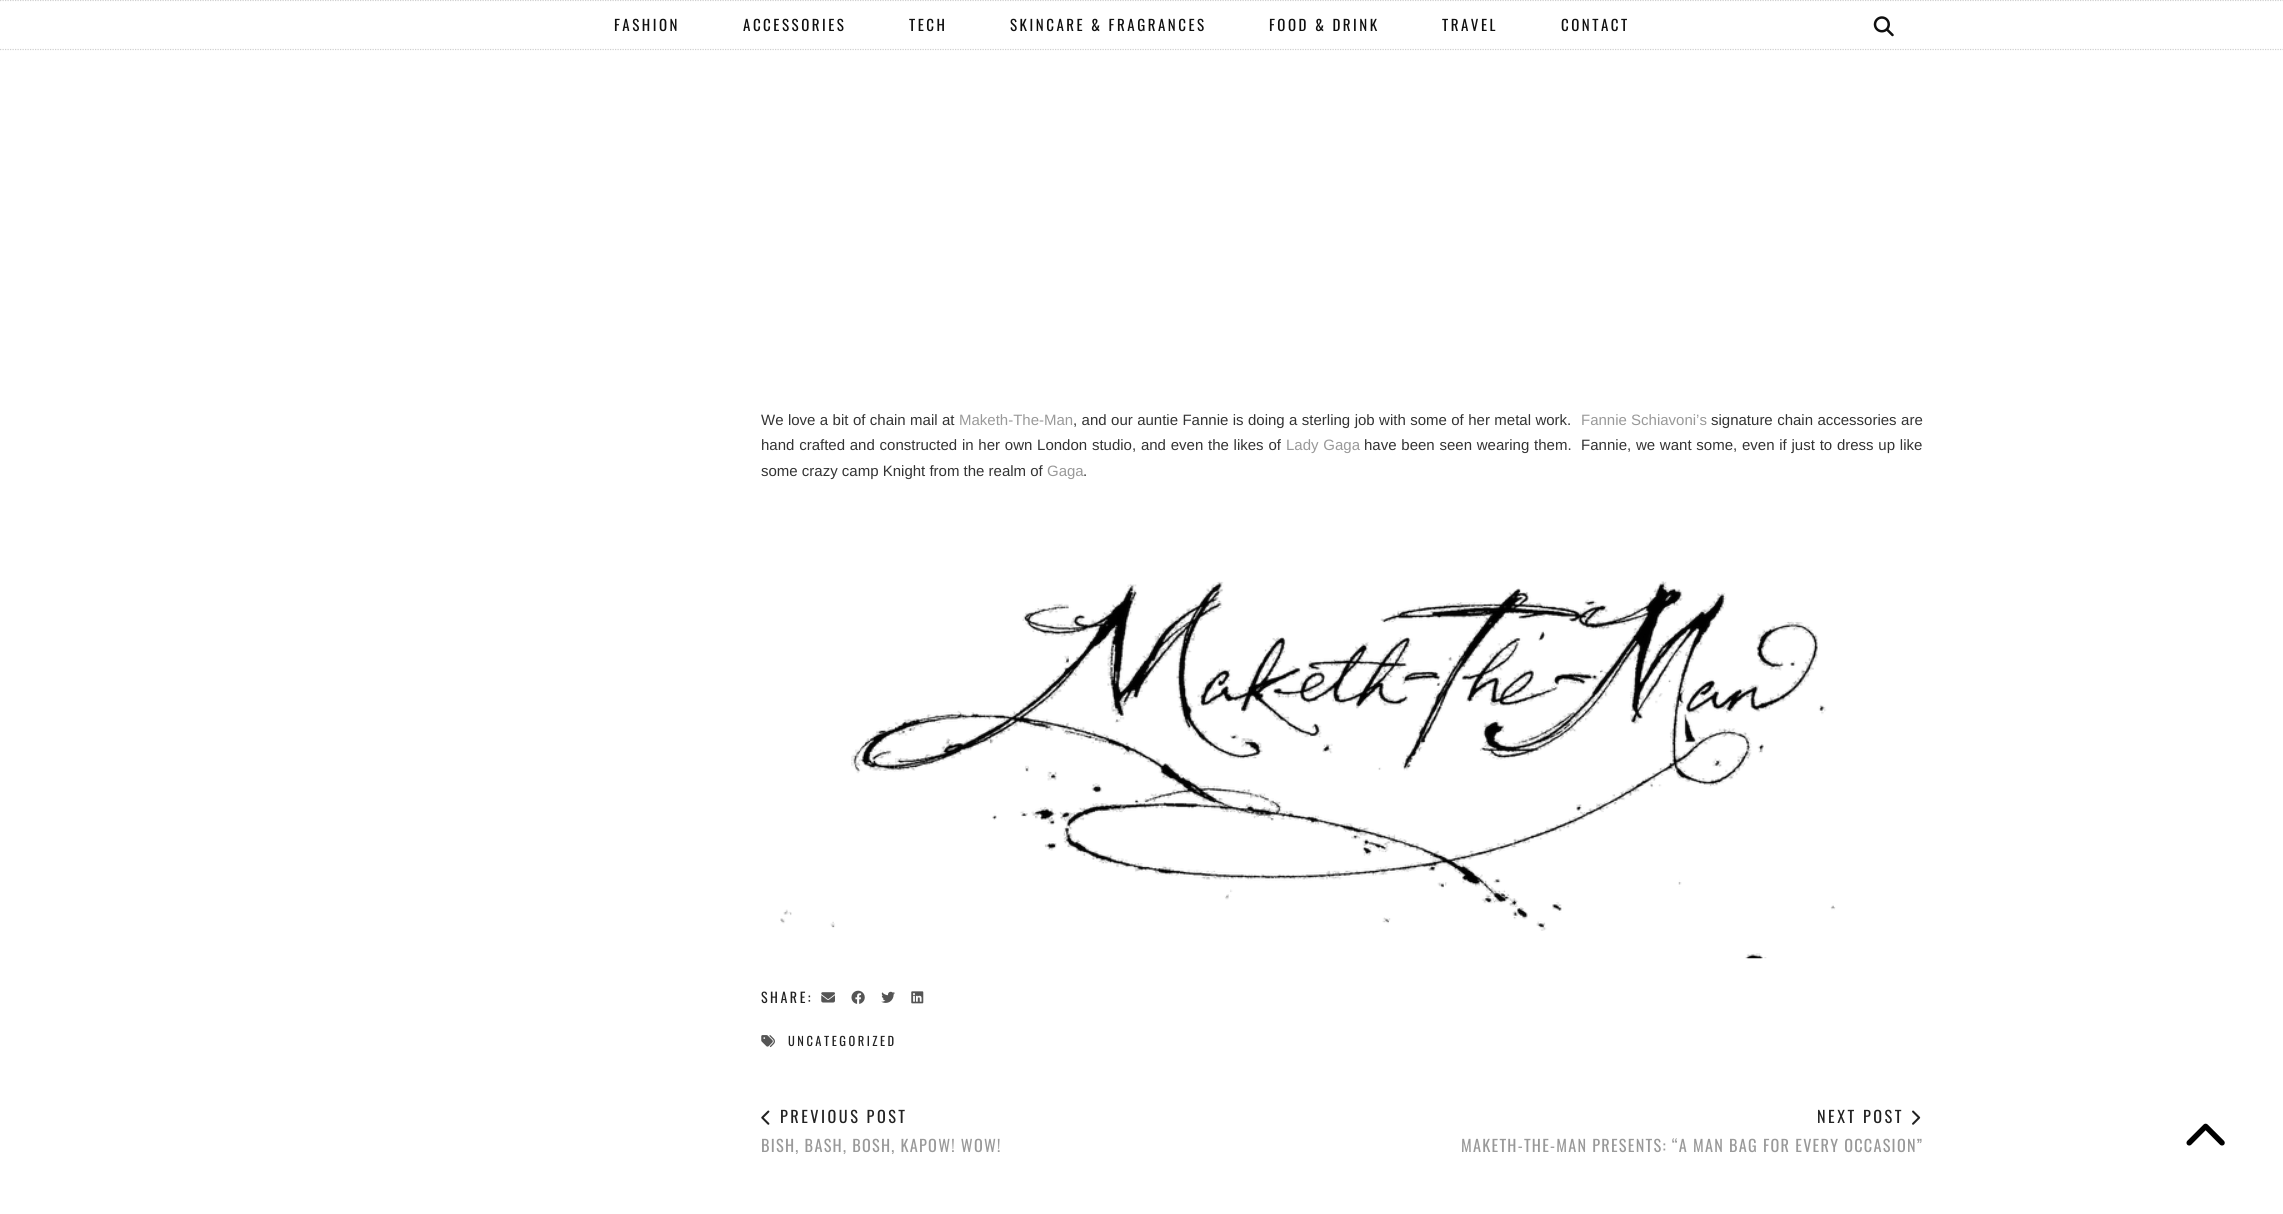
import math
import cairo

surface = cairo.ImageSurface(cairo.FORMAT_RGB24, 2283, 1214)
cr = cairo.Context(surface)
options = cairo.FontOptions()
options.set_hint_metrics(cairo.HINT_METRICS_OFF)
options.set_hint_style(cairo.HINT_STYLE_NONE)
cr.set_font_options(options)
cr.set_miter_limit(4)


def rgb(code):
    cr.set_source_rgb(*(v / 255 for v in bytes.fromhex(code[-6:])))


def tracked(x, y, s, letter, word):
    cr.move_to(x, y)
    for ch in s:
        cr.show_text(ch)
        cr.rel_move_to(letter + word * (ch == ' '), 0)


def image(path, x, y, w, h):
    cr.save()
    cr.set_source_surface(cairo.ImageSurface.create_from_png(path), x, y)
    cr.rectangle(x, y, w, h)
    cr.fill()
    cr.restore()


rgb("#ffffff")
cr.paint()
cr.new_path()
cr.move_to(0, 0.5)
cr.line_to(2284, 0.5)
rgb("#cfcfcf")
cr.set_line_width(1.2)
cr.set_dash([1.25, 1.25])
cr.stroke()
cr.new_path()
cr.move_to(0, 49.5)
cr.line_to(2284, 49.5)
cr.stroke()
image("img/1.png", 1873, 16, 21, 21)
image("img/2.png", 780, 581, 1056, 378)
image("img/3.png", 821, 992, 14, 11)
image("img/4.png", 851, 990, 14, 14)
image("img/5.png", 881, 991, 14, 12)
image("img/6.png", 911, 991, 13, 13)
image("img/7.png", 761, 1035, 14, 13)
image("img/8.png", 761, 1110, 9, 15)
image("img/9.png", 1912, 1110, 9, 15)
image("img/10.png", 2186, 1123, 39, 23)
cr.select_font_face("Oswald")
cr.set_font_size(15)
rgb("#0f0f0f")
for x, y, s in [
    (614, 31, "FASHION"),
    (743, 31, "ACCESSORIES"),
    (909, 31, "TECH"),
    (1010, 31, "SKINCARE & FRAGRANCES"),
    (1269, 31, "FOOD & DRINK"),
    (1442, 31, "TRAVEL"),
    (1561, 31, "CONTACT"),
]:
    tracked(x, y, s, 2.5, 0)
cr.select_font_face("Liberation Sans")
rgb("#333333")
tracked(761, 425, "We love a bit of chain mail at", 0, 0.25)
rgb("#999999")
cr.move_to(959, 425)
cr.show_text("Maketh-The-Man")
rgb("#333333")
tracked(1073, 425, ", and our auntie Fannie is doing a sterling job with some of her metal work.", 0, 0.25)
rgb("#999999")
cr.move_to(1581, 425)
cr.show_text("Fannie Schiavoni’s")
rgb("#333333")
tracked(1711, 425, "signature chain accessories are", 0, 0.25)
tracked(761, 450, "hand crafted and constructed in her own London studio, and even the likes of", 0, 0.6)
rgb("#999999")
tracked(1286, 450, "Lady Gaga", 0, 0.6)
rgb("#333333")
tracked(1364, 450, "have been seen wearing them.  Fannie, we want some, even if just to dress up like", 0, 0.6)
cr.move_to(761, 476)
cr.show_text("some crazy camp Knight from the realm of")
rgb("#999999")
cr.move_to(1047, 476)
cr.show_text("Gaga")
rgb("#333333")
cr.move_to(1083, 476)
cr.show_text(".")
cr.select_font_face("Oswald")
cr.set_font_size(14)
rgb("#222222")
tracked(761, 1003, "SHARE:", 2.5, 0)
cr.set_font_size(12.5)
tracked(788, 1046, "UNCATEGORIZED", 2.5, 0)
cr.set_font_size(16.25)
tracked(780, 1123, "PREVIOUS POST", 2.5, 0)
rgb("#999999")
tracked(761, 1152, "BISH, BASH, BOSH, KAPOW! WOW!", 1.25, 0)
rgb("#222222")
tracked(1817, 1123, "NEXT POST", 2.5, 0)
rgb("#999999")
tracked(1461, 1152, "MAKETH-THE-MAN PRESENTS: “A MAN BAG FOR EVERY OCCASION”", 1.25, 0)
surface.write_to_png("page.png")
